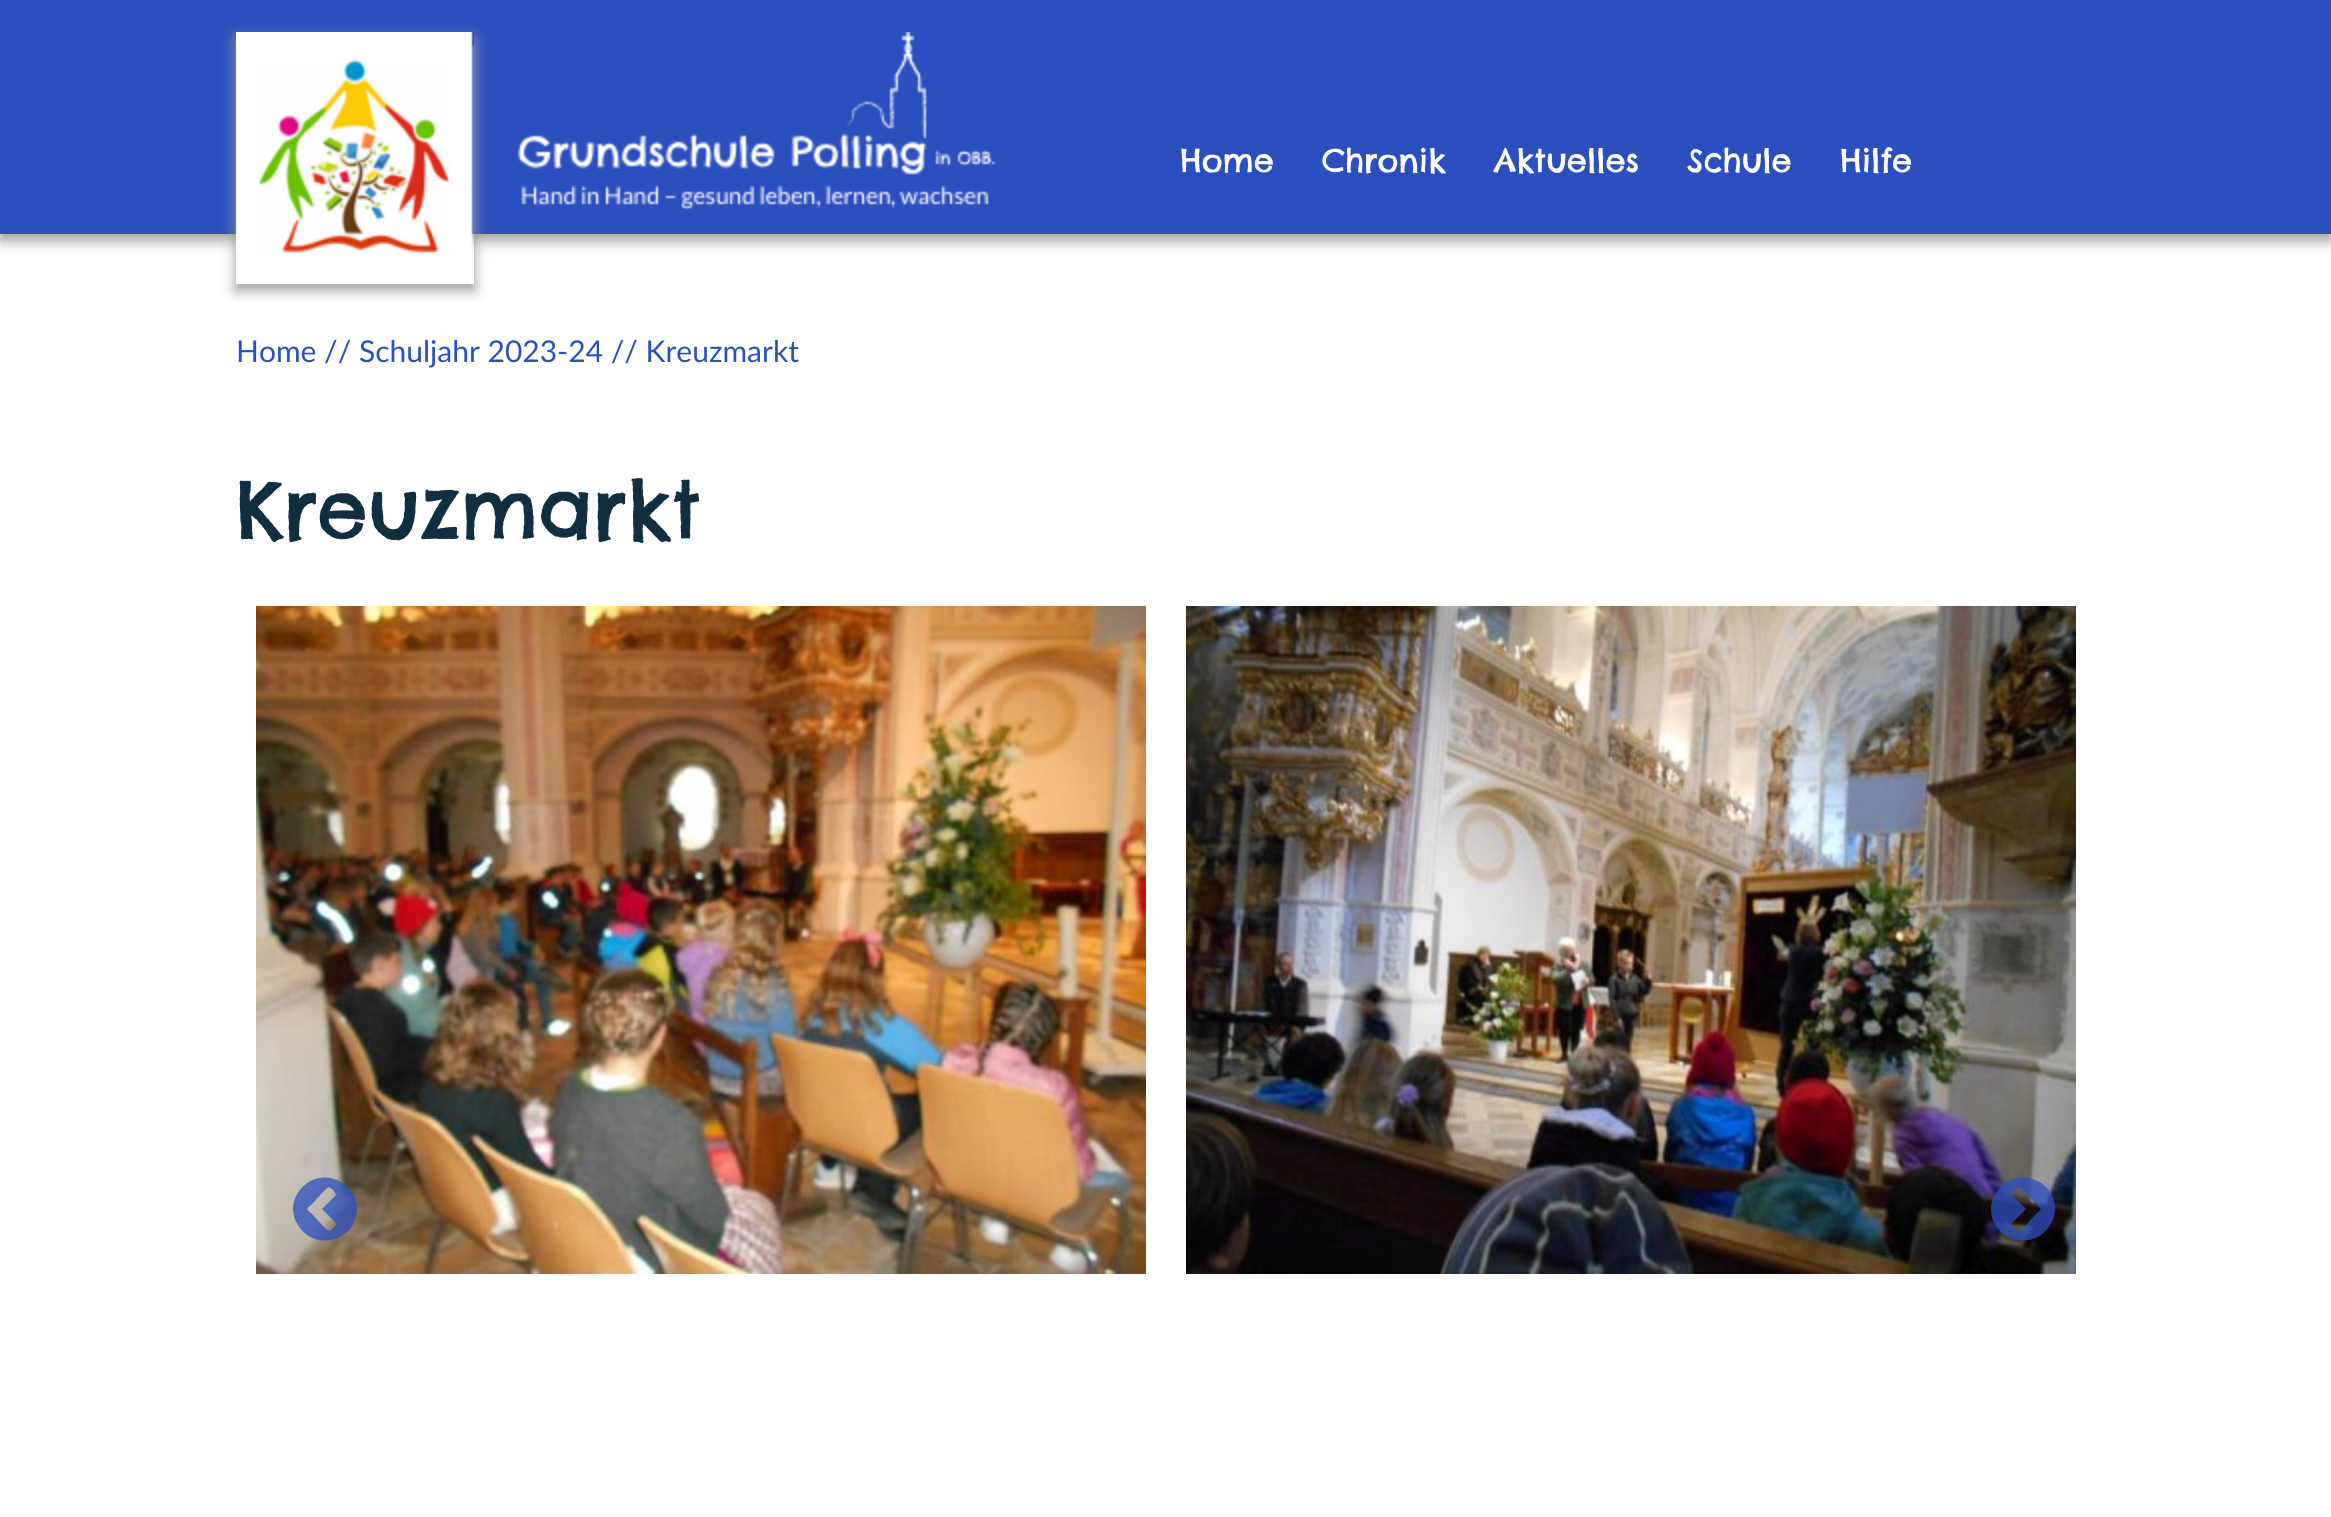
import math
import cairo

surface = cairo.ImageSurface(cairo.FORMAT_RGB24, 2331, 1517)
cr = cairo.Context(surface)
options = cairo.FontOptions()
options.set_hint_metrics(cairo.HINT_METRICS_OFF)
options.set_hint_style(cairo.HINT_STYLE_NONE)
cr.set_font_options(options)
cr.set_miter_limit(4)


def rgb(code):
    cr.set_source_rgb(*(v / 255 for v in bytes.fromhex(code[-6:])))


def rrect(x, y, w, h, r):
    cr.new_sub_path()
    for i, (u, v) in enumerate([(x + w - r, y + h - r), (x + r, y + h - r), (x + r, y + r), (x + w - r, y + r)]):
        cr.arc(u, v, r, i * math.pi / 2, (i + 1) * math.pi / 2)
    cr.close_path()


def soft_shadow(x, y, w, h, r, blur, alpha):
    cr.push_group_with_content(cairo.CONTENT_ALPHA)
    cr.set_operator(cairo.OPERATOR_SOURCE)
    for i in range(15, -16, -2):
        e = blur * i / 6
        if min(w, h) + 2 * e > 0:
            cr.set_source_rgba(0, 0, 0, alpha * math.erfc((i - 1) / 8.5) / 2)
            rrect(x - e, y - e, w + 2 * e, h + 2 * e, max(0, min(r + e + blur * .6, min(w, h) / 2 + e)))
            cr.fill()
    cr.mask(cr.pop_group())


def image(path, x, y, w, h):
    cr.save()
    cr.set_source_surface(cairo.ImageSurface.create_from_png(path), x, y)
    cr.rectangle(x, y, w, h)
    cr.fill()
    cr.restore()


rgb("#ffffff")
cr.paint()
rgb("#999999")
soft_shadow(0, 6, 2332, 234, 0, 7, 1)
rgb("#2b4fbf")
cr.rectangle(0, 0, 2331, 234)
cr.fill()
cr.save()
cr.set_fill_rule(cairo.FILL_RULE_EVEN_ODD)
cr.new_path()
cr.move_to(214, 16)
cr.line_to(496, 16)
cr.line_to(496, 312)
cr.line_to(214, 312)
cr.close_path()
cr.move_to(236, 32)
cr.line_to(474, 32)
cr.line_to(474, 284)
cr.line_to(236, 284)
cr.close_path()
cr.clip()
rgb("#999999")
soft_shadow(236, 38, 238, 252, 0, 7, 1)
cr.restore()
image("img/1.png", 236, 32, 238, 222)
image("img/2.png", 517, 32, 479, 178)
image("img/3.png", 256, 606, 890, 668)
image("img/4.png", 1186, 606, 890, 668)
cr.set_source_rgba(0.169, 0.31, 0.749, 0.75)
cr.new_path()
cr.move_to(331, 1230)
cr.curve_to(328, 1232, 325, 1228, 324, 1227)
cr.line_to(312, 1214)
cr.curve_to(306, 1209, 306, 1209, 312, 1204)
cr.line_to(324, 1191)
cr.curve_to(328, 1187, 329, 1186, 333, 1190)
cr.curve_to(334, 1192, 337, 1194, 335, 1196)
cr.line_to(322, 1209)
cr.line_to(333, 1220)
cr.curve_to(338, 1225, 336, 1225, 331, 1230)
cr.close_path()
cr.move_to(357, 1209)
cr.curve_to(357, 1179, 318, 1166, 300, 1190)
cr.curve_to(296, 1195, 293, 1202, 293, 1209)
cr.curve_to(293, 1216, 296, 1223, 300, 1228)
cr.curve_to(318, 1252, 357, 1239, 357, 1209)
cr.close_path()
cr.fill()
cr.new_path()
cr.move_to(2021, 1230)
cr.curve_to(2019, 1232, 2016, 1229, 2015, 1228)
cr.curve_to(2011, 1224, 2011, 1224, 2015, 1220)
cr.line_to(2026, 1209)
cr.line_to(2015, 1198)
cr.curve_to(2011, 1194, 2012, 1194, 2016, 1189)
cr.curve_to(2021, 1185, 2023, 1191, 2027, 1195)
cr.line_to(2036, 1204)
cr.curve_to(2042, 1209, 2042, 1209, 2036, 1214)
cr.close_path()
cr.move_to(2055, 1209)
cr.curve_to(2055, 1179, 2016, 1166, 1998, 1190)
cr.curve_to(1994, 1195, 1991, 1202, 1991, 1209)
cr.curve_to(1991, 1239, 2030, 1252, 2048, 1228)
cr.curve_to(2052, 1223, 2055, 1216, 2055, 1209)
cr.close_path()
cr.fill()
cr.select_font_face("Chelsea Market")
cr.set_font_size(32)
rgb("#ffffff")
for x, y, s in [
    (1180, 172, "Home"),
    (1322, 172, "Chronik"),
    (1494, 172, "Aktuelles"),
    (1687, 172, "Schule"),
    (1840, 172, "Hilfe"),
]:
    cr.move_to(x, y)
    cr.show_text(s)
cr.select_font_face("Lato")
cr.set_font_size(30)
rgb("#2b4fbf")
cr.move_to(236, 362)
cr.show_text("Home // Schuljahr 2023-24 // Kreuzmarkt")
cr.select_font_face("Chelsea Market")
cr.set_font_size(80)
rgb("#102f41")
cr.move_to(236, 538)
cr.show_text("Kreuzmarkt")
surface.write_to_png("page.png")
